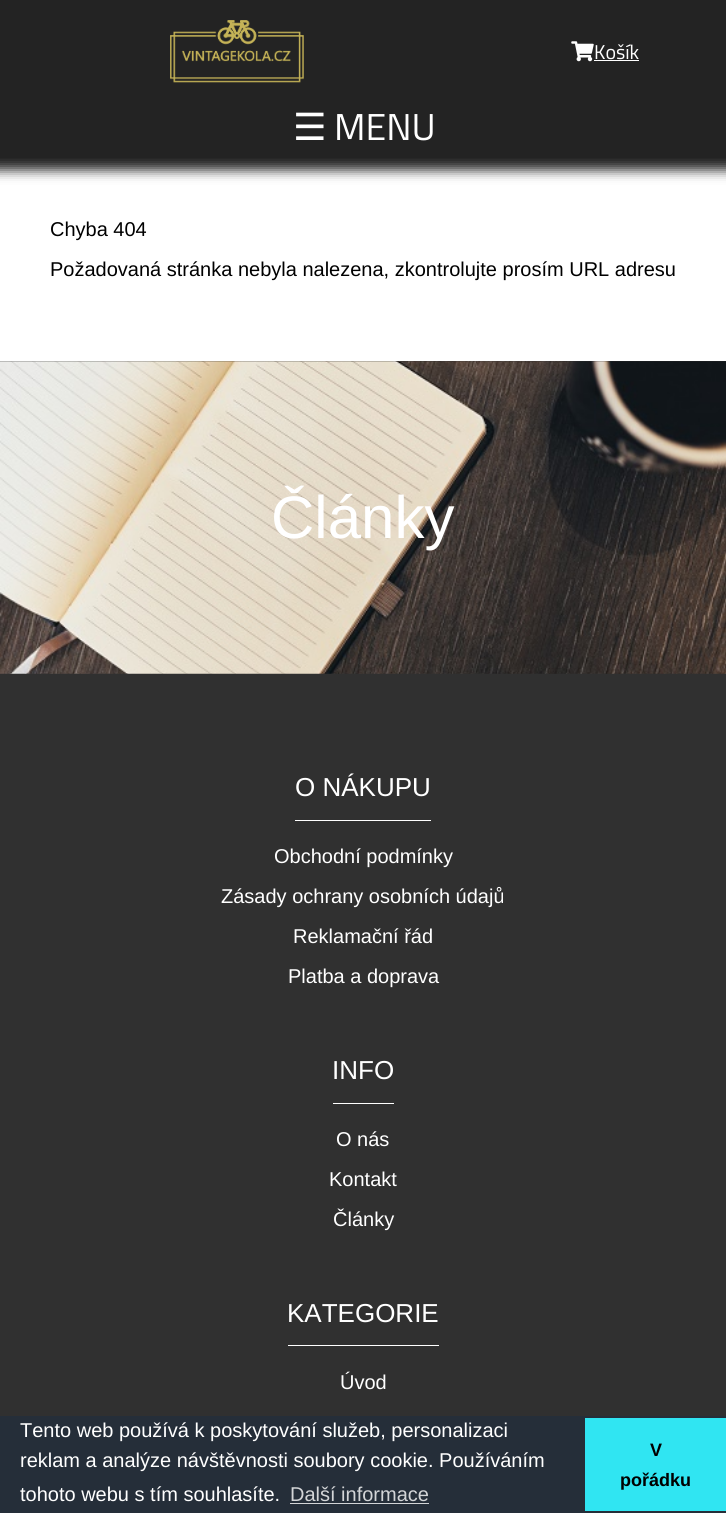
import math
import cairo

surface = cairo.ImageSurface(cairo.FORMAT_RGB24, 726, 1513)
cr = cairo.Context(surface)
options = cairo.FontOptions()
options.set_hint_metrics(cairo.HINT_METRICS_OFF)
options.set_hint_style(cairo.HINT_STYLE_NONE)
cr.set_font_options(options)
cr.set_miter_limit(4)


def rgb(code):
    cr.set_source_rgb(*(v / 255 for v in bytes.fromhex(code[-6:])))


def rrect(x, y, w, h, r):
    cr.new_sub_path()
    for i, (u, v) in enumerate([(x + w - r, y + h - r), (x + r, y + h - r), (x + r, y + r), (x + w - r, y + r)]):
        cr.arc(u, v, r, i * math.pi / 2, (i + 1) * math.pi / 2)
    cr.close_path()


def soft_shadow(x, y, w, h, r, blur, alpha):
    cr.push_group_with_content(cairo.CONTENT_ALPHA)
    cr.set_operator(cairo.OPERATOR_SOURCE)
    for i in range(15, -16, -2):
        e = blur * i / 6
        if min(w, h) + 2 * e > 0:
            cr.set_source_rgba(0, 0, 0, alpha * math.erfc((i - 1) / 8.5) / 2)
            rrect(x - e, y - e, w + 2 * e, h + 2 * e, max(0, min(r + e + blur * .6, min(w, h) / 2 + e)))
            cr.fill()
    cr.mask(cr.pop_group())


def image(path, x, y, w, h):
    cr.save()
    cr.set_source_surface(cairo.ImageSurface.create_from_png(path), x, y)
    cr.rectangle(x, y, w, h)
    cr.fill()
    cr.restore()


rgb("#ffffff")
cr.paint()
rgb("#232323")
soft_shadow(-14, -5, 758, 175, 0, 6, 1)
rgb("#232323")
cr.rectangle(0, 0, 726, 158)
cr.fill()
image("img/1.png", 170, 20, 134, 63)
image("img/2.png", 571, 41, 23, 21)
rgb("#ffffff")
cr.rectangle(594, 60, 45, 1)
cr.fill()
rgb("#303030")
cr.rectangle(0, 361, 726, 1055)
cr.fill()
image("img/3.png", 0, 361, 726, 313)
for x, y, w, h, color in [
    (295, 820, 136, 1, "#ffffff"),
    (333, 1103, 61, 1, "#ffffff"),
    (288, 1345, 151, 1, "#ffffff"),
    (0, 1416, 726, 97, "#252e39"),
    (290, 1503, 139, 1, "#d3d5d7"),
    (585, 1418, 141, 93, "#30e5f2"),
]:
    rgb(color)
    cr.rectangle(x, y, w, h)
    cr.fill()
cr.select_font_face("Titillium Web")
cr.set_font_size(20)
rgb("#ffffff")
cr.move_to(594, 59)
cr.show_text("Košík")
cr.select_font_face("DejaVu Sans")
cr.set_font_size(37.5)
cr.move_to(293, 140)
cr.show_text("☰")
cr.select_font_face("Titillium Web")
cr.move_to(334, 140)
cr.show_text("MENU")
cr.select_font_face("Liberation Sans")
cr.set_font_size(20)
rgb("#000000")
cr.move_to(50, 236)
cr.show_text("Chyba 404")
cr.move_to(50, 276)
cr.show_text("Požadovaná stránka nebyla nalezena, zkontrolujte prosím URL adresu")
cr.set_font_size(60)
rgb("#ffffff")
cr.move_to(271, 538)
cr.show_text("Články")
cr.set_font_size(26)
cr.move_to(295, 796)
cr.show_text("O NÁKUPU")
cr.set_font_size(20)
for x, y, s in [
    (274, 863, "Obchodní podmínky"),
    (221, 903, "Zásady ochrany osobních údajů"),
    (293, 943, "Reklamační řád"),
    (288, 983, "Platba a doprava"),
]:
    cr.move_to(x, y)
    cr.show_text(s)
cr.set_font_size(26)
cr.move_to(332, 1079)
cr.show_text("INFO")
cr.set_font_size(20)
for x, y, s in [
    (336, 1146, "O nás"),
    (329, 1186, "Kontakt"),
    (333, 1226, "Články"),
]:
    cr.move_to(x, y)
    cr.show_text(s)
cr.set_font_size(26)
cr.move_to(287, 1322)
cr.show_text("KATEGORIE")
cr.set_font_size(20)
for x, y, s in [
    (340, 1389, "Úvod"),
    (20, 1437, "Tento web používá k poskytování služeb, personalizaci"),
    (20, 1467, "reklam a analýze návštěvnosti soubory cookie. Používáním"),
    (20, 1501, "tohoto webu s tím souhlasíte."),
]:
    cr.move_to(x, y)
    cr.show_text(s)
rgb("#d3d5d7")
cr.move_to(290, 1501)
cr.show_text("Další informace")
cr.select_font_face("Liberation Sans", cairo.FONT_SLANT_NORMAL, cairo.FONT_WEIGHT_BOLD)
cr.set_font_size(18)
rgb("#000000")
cr.move_to(650, 1456)
cr.show_text("V")
cr.move_to(620, 1486)
cr.show_text("pořádku")
surface.write_to_png("page.png")
